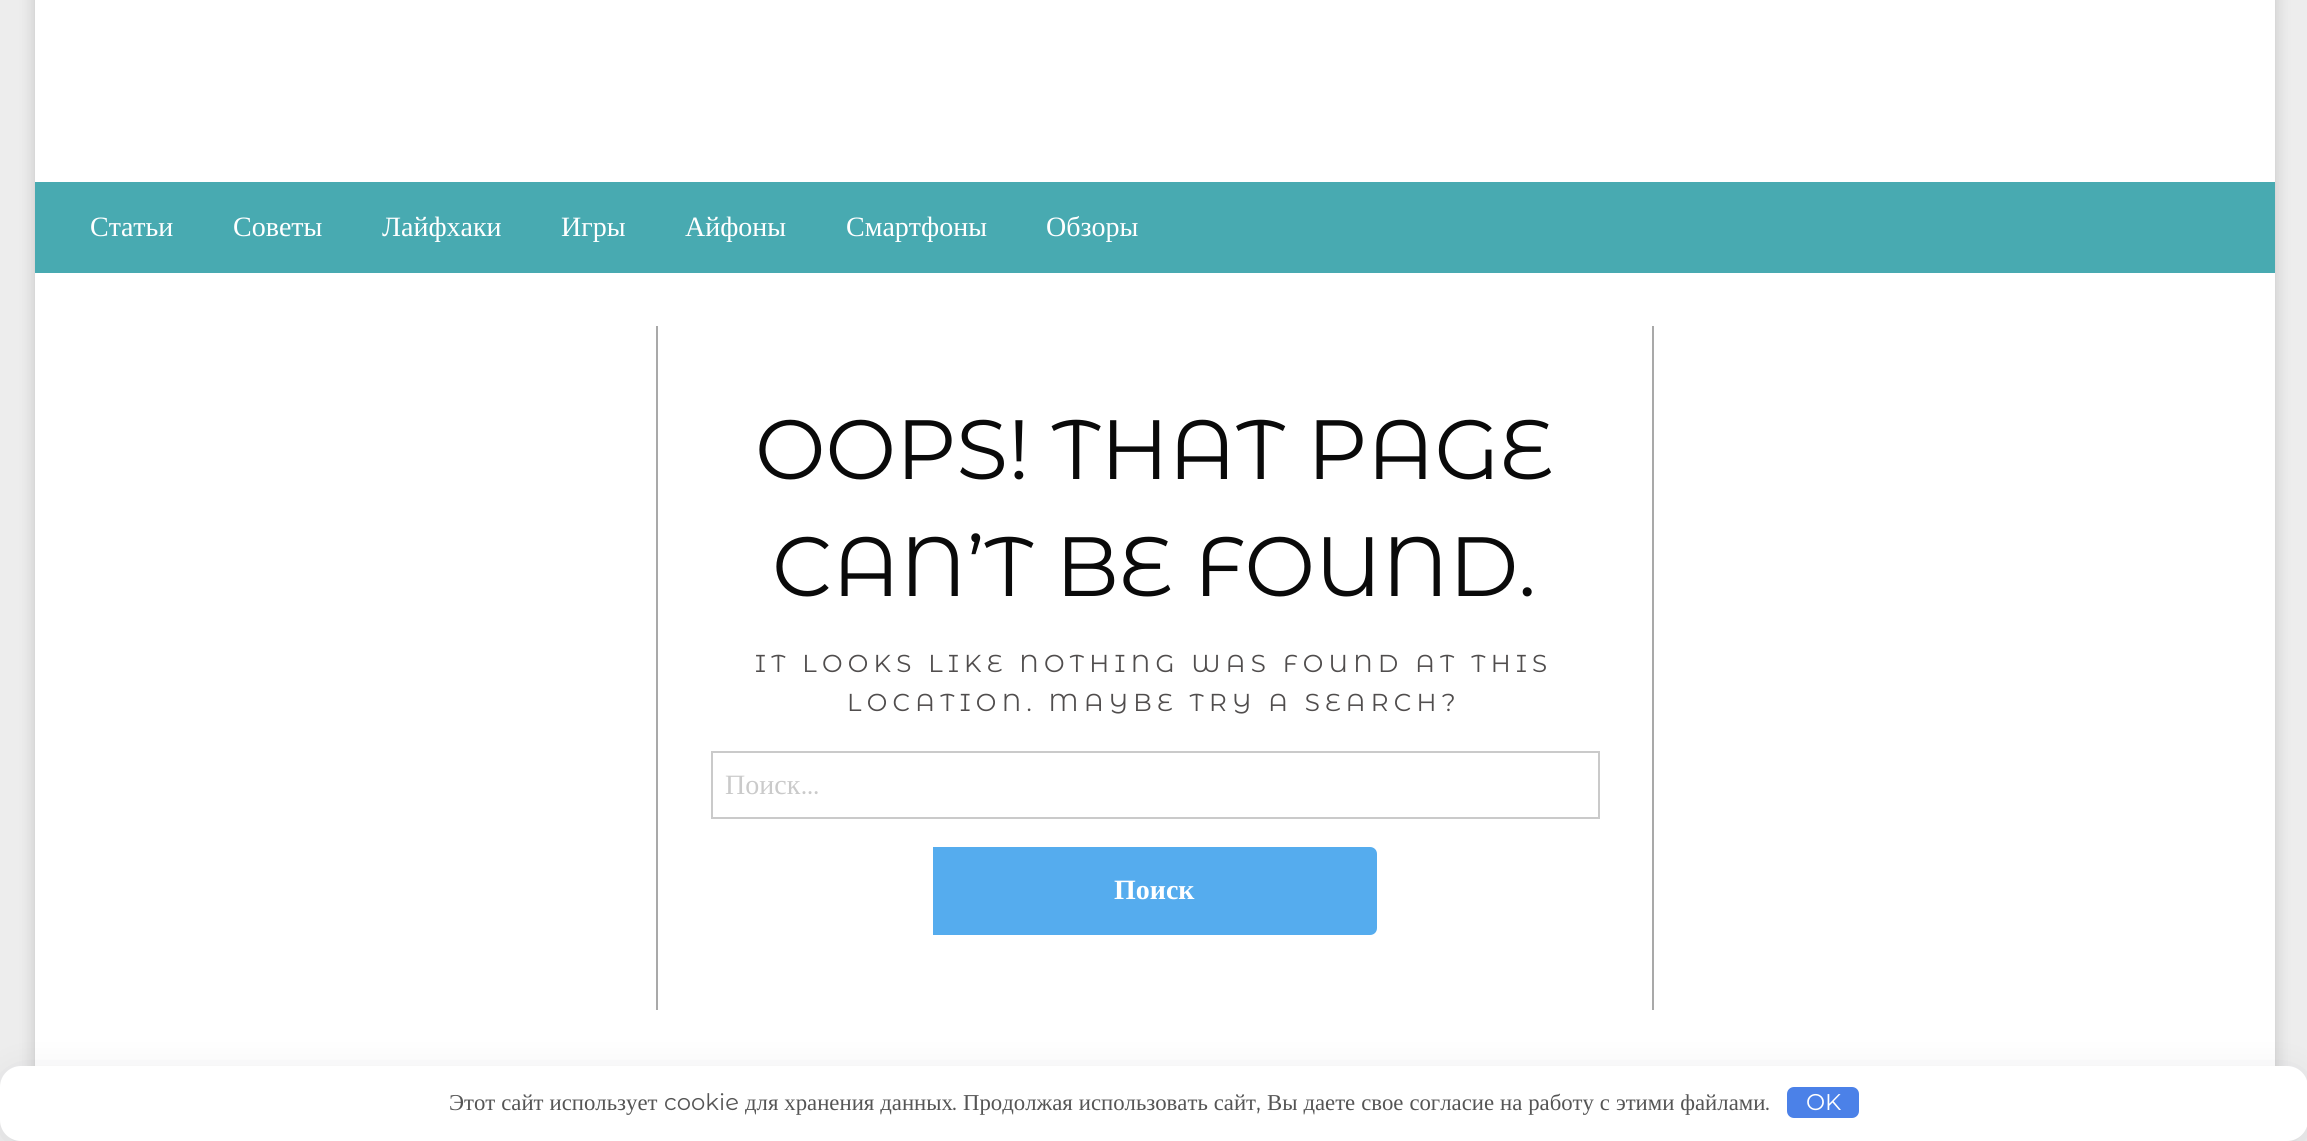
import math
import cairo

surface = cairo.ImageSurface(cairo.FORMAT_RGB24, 2307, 1141)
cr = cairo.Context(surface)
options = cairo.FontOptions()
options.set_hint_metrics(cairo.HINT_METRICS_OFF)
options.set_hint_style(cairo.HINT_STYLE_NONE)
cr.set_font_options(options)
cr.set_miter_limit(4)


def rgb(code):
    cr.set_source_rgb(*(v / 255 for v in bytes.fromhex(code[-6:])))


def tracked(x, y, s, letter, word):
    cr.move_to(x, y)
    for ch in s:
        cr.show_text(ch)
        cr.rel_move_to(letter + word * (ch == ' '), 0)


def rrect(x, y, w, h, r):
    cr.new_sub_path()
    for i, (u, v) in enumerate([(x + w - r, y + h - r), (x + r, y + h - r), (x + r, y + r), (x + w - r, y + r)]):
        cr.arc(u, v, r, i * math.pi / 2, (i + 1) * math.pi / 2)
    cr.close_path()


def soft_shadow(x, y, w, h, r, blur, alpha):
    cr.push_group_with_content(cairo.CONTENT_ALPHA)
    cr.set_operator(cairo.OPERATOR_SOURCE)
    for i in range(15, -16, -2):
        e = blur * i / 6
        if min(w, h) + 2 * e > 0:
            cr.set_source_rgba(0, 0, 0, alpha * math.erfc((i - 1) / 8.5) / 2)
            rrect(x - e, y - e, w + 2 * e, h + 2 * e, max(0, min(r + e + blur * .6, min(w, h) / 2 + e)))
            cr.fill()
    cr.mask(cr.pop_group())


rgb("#ededed")
cr.paint()
rgb("#000000")
soft_shadow(35, -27, 2240, 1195, 0, 9, 0.09)
soft_shadow(35, -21, 2240, 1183, 0, 7, 0.1)
for x, y, w, h, color in [
    (35, 0, 2240, 182, "#ffffff"),
    (35, 182, 2240, 91, "#48aab1"),
    (35, 273, 2240, 793, "#ffffff"),
]:
    rgb(color)
    cr.rectangle(x, y, w, h)
    cr.fill()
cr.save()
cr.rectangle(61, 326, 2188, 684)
cr.clip()
cr.rectangle(657, 309, 996, 719)
rgb("#a9a9a9")
cr.stroke()
cr.restore()
cr.rectangle(712, 752, 887, 66)
rgb("#cacaca")
cr.stroke()
rgb("#55acee")
cr.new_path()
cr.move_to(933, 847)
cr.line_to(1370, 847)
cr.curve_to(1374, 847, 1377, 850, 1377, 854)
cr.line_to(1377, 928)
cr.curve_to(1377, 932, 1374, 935, 1370, 935)
cr.line_to(933, 935)
cr.close_path()
cr.fill()
rgb("#292c38")
soft_shadow(9, 1080, 2291, 58, 12, 17.5, 0.2)
rgb("#ffffff")
rrect(0, 1066, 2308, 75, 21)
cr.fill()
rgb("#4b81e8")
rrect(1787, 1087, 72, 31, 7)
cr.fill()
cr.select_font_face("Liberation Serif")
cr.set_font_size(28)
rgb("#ffffff")
for x, y, s in [
    (90, 236, "Статьи"),
    (233, 236, "Советы"),
    (382, 236, "Лайфхаки"),
    (561, 236, "Игры"),
    (685, 236, "Айфоны"),
    (846, 236, "Смартфоны"),
    (1046, 236, "Обзоры"),
]:
    cr.move_to(x, y)
    cr.show_text(s)
cr.select_font_face("Montserrat Alternates")
cr.set_font_size(84)
rgb("#0a0a0a")
cr.move_to(755, 479)
cr.show_text("OOPS! THAT PAGE")
cr.move_to(772, 596)
cr.show_text("CAN’T BE FOUND.")
cr.set_font_size(24.5)
rgb("#504d4d")
tracked(755, 672, "IT LOOKS LIKE NOTHING WAS FOUND AT THIS", 5.25, 0)
tracked(847, 711, "LOCATION. MAYBE TRY A SEARCH?", 5.25, 0)
cr.select_font_face("Liberation Serif")
cr.set_font_size(28)
rgb("#cacaca")
cr.move_to(725, 794)
cr.show_text("Поиск")
cr.select_font_face("Montserrat Alternates")
cr.move_to(801, 794)
cr.show_text("…")
cr.select_font_face("Liberation Serif", cairo.FONT_SLANT_NORMAL, cairo.FONT_WEIGHT_BOLD)
rgb("#ffffff")
cr.move_to(1114, 899)
cr.show_text("Поиск")
cr.select_font_face("Liberation Serif")
cr.set_font_size(22.75)
rgb("#555555")
tracked(449, 1110, "Этот сайт использует", 0, 0.25)
cr.select_font_face("Montserrat Alternates")
cr.move_to(664, 1110)
cr.show_text("cookie")
cr.select_font_face("Liberation Serif")
tracked(745, 1110, "для хранения данных", 0, 0.25)
cr.select_font_face("Montserrat Alternates")
cr.move_to(952, 1110)
cr.show_text(".")
cr.select_font_face("Liberation Serif")
tracked(963, 1110, "Продолжая использовать сайт", 0, 0.25)
cr.select_font_face("Montserrat Alternates")
cr.move_to(1256, 1110)
cr.show_text(",")
cr.select_font_face("Liberation Serif")
tracked(1267, 1110, "Вы даете свое согласие на работу с этими файлами", 0, 0.25)
cr.select_font_face("Montserrat Alternates")
cr.move_to(1765, 1110)
cr.show_text(".")
rgb("#ffffff")
cr.move_to(1806, 1110)
cr.show_text("OK")
surface.write_to_png("page.png")
